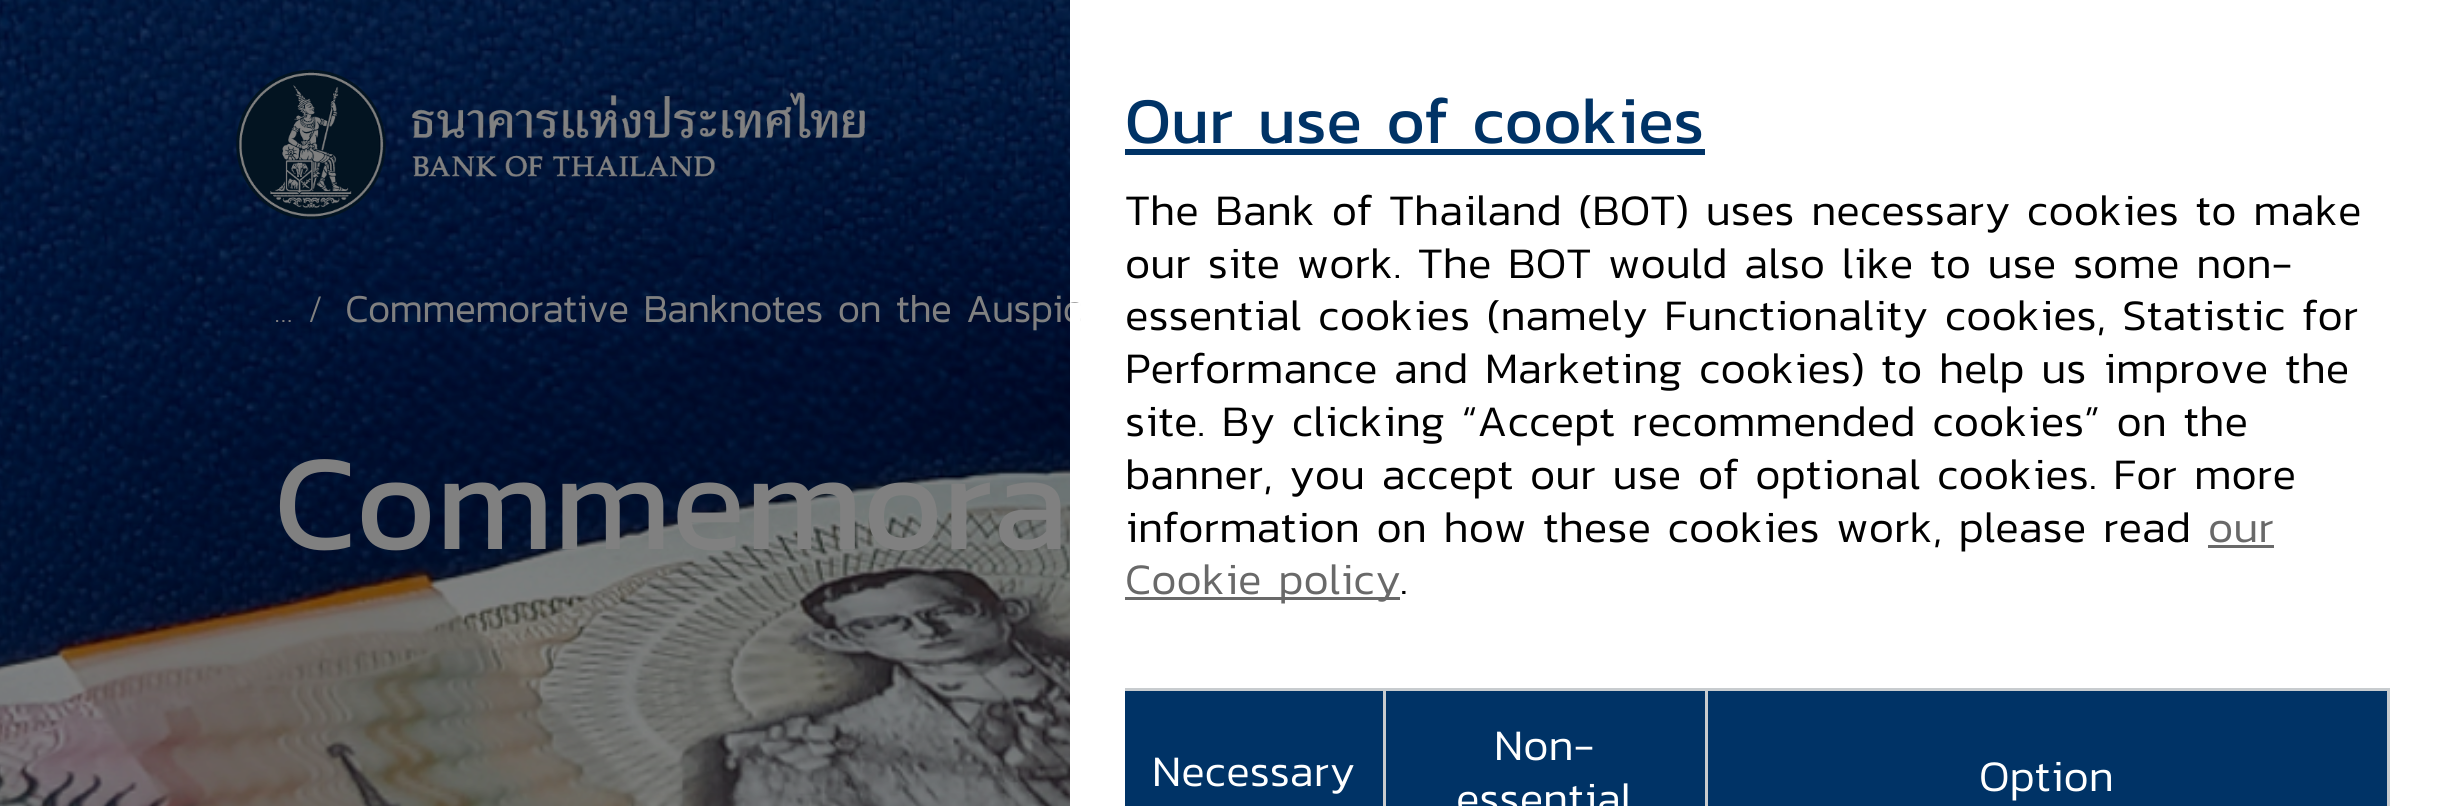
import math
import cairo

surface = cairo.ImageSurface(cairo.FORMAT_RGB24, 2443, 806)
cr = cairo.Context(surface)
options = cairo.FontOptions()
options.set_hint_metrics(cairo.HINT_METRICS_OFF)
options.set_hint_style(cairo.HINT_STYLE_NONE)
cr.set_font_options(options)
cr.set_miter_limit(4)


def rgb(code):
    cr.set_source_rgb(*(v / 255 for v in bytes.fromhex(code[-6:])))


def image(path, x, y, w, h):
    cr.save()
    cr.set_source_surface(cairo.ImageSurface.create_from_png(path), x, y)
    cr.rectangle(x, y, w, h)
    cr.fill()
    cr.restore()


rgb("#ffffff")
cr.paint()
image("img/2.png", 0, 0, 1070, 806)
image("img/1.png", 236, 69, 629, 151)
for x, y, w, h, color in [
    (1125, 149, 580, 6, "#003366"),
    (2208, 545, 66, 3, "#696969"),
    (1125, 597, 275, 3, "#696969"),
    (1125, 691, 1262, 115, "#003366"),
    (1125, 688, 1265, 3, "#c8cccf"),
    (1383, 688, 3, 118, "#c8cccf"),
    (1705, 688, 3, 118, "#c8cccf"),
    (2387, 688, 3, 118, "#c8cccf"),
]:
    rgb(color)
    cr.rectangle(x, y, w, h)
    cr.fill()
cr.select_font_face("Kanit")
cr.set_font_size(66)
rgb("#003366")
cr.move_to(1125, 143)
cr.show_text("Our use of cookies")
cr.select_font_face("Kanit Light")
cr.set_font_size(44)
rgb("#000000")
for x, y, s in [
    (1125, 225, "The Bank of Thailand (BOT) uses necessary cookies to make"),
    (1125, 278, "our site work. The BOT would also like to use some non-"),
    (1125, 330, "essential cookies (namely Functionality cookies, Statistic for"),
    (1125, 383, "Performance and Marketing cookies) to help us improve the"),
    (1125, 436, "site. By clicking “Accept recommended cookies” on the"),
    (1125, 489, "banner, you accept our use of optional cookies. For more"),
    (1125, 542, "information on how these cookies work, please read"),
]:
    cr.move_to(x, y)
    cr.show_text(s)
rgb("#696969")
cr.move_to(2208, 542)
cr.show_text("our")
cr.move_to(1125, 594)
cr.show_text("Cookie policy")
rgb("#000000")
cr.move_to(1400, 594)
cr.show_text(".")
rgb("#ffffff")
for x, y, s in [
    (1152, 786, "Necessary"),
    (1494, 760, "Non-"),
    (1456, 813, "essential"),
    (1979, 791, "Option"),
]:
    cr.move_to(x, y)
    cr.show_text(s)
cr.select_font_face("Kanit ExtraLight")
cr.set_font_size(38.5)
rgb("#808080")
cr.move_to(274, 322)
cr.show_text("... /")
cr.select_font_face("Kanit", cairo.FONT_SLANT_NORMAL, cairo.FONT_WEIGHT_BOLD)
cr.move_to(345, 322)
cr.show_text("Commemorative Banknotes on the Auspic")
rgb("#ffffff")
cr.rectangle(1070, 303, 10, 20)
cr.fill()
cr.select_font_face("Kanit")
cr.set_font_size(137.5)
rgb("#808080")
cr.move_to(274, 549)
cr.show_text("Commemora")
surface.write_to_png("page.png")
